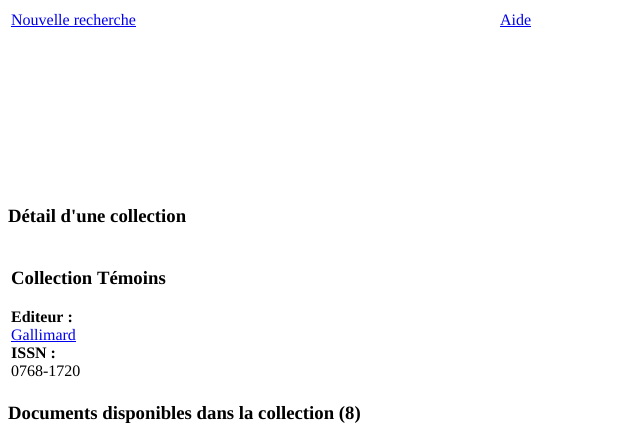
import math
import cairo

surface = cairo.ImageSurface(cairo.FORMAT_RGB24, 636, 432)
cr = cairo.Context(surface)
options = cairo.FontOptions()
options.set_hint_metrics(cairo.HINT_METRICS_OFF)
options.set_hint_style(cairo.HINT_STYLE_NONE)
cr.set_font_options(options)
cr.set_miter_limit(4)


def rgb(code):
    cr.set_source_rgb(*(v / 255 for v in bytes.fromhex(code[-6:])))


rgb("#ffffff")
cr.paint()
for x, y, w, h, color in [
    (11, 26, 125, 1, "#0000ee"),
    (500, 26, 31, 1, "#0000ee"),
    (11, 341, 65, 1, "#0000ee"),
]:
    rgb(color)
    cr.rectangle(x, y, w, h)
    cr.fill()
cr.select_font_face("Liberation Serif")
cr.set_font_size(16)
cr.move_to(11, 25)
cr.show_text("Nouvelle recherche")
cr.move_to(500, 25)
cr.show_text("Aide")
cr.select_font_face("Liberation Serif", cairo.FONT_SLANT_NORMAL, cairo.FONT_WEIGHT_BOLD)
cr.set_font_size(18.75)
rgb("#000000")
cr.move_to(8, 222)
cr.show_text("Détail d'une collection")
cr.move_to(11, 284)
cr.show_text("Collection Témoins")
cr.set_font_size(16)
cr.move_to(11, 322)
cr.show_text("Editeur :")
cr.select_font_face("Liberation Serif")
rgb("#0000ee")
cr.move_to(11, 340)
cr.show_text("Gallimard")
cr.select_font_face("Liberation Serif", cairo.FONT_SLANT_NORMAL, cairo.FONT_WEIGHT_BOLD)
rgb("#000000")
cr.move_to(11, 358)
cr.show_text("ISSN :")
cr.select_font_face("Liberation Serif")
cr.move_to(11, 376)
cr.show_text("0768-1720")
cr.select_font_face("Liberation Serif", cairo.FONT_SLANT_NORMAL, cairo.FONT_WEIGHT_BOLD)
cr.set_font_size(18.75)
cr.move_to(8, 419)
cr.show_text("Documents disponibles dans la collection (8)")
surface.write_to_png("page.png")
